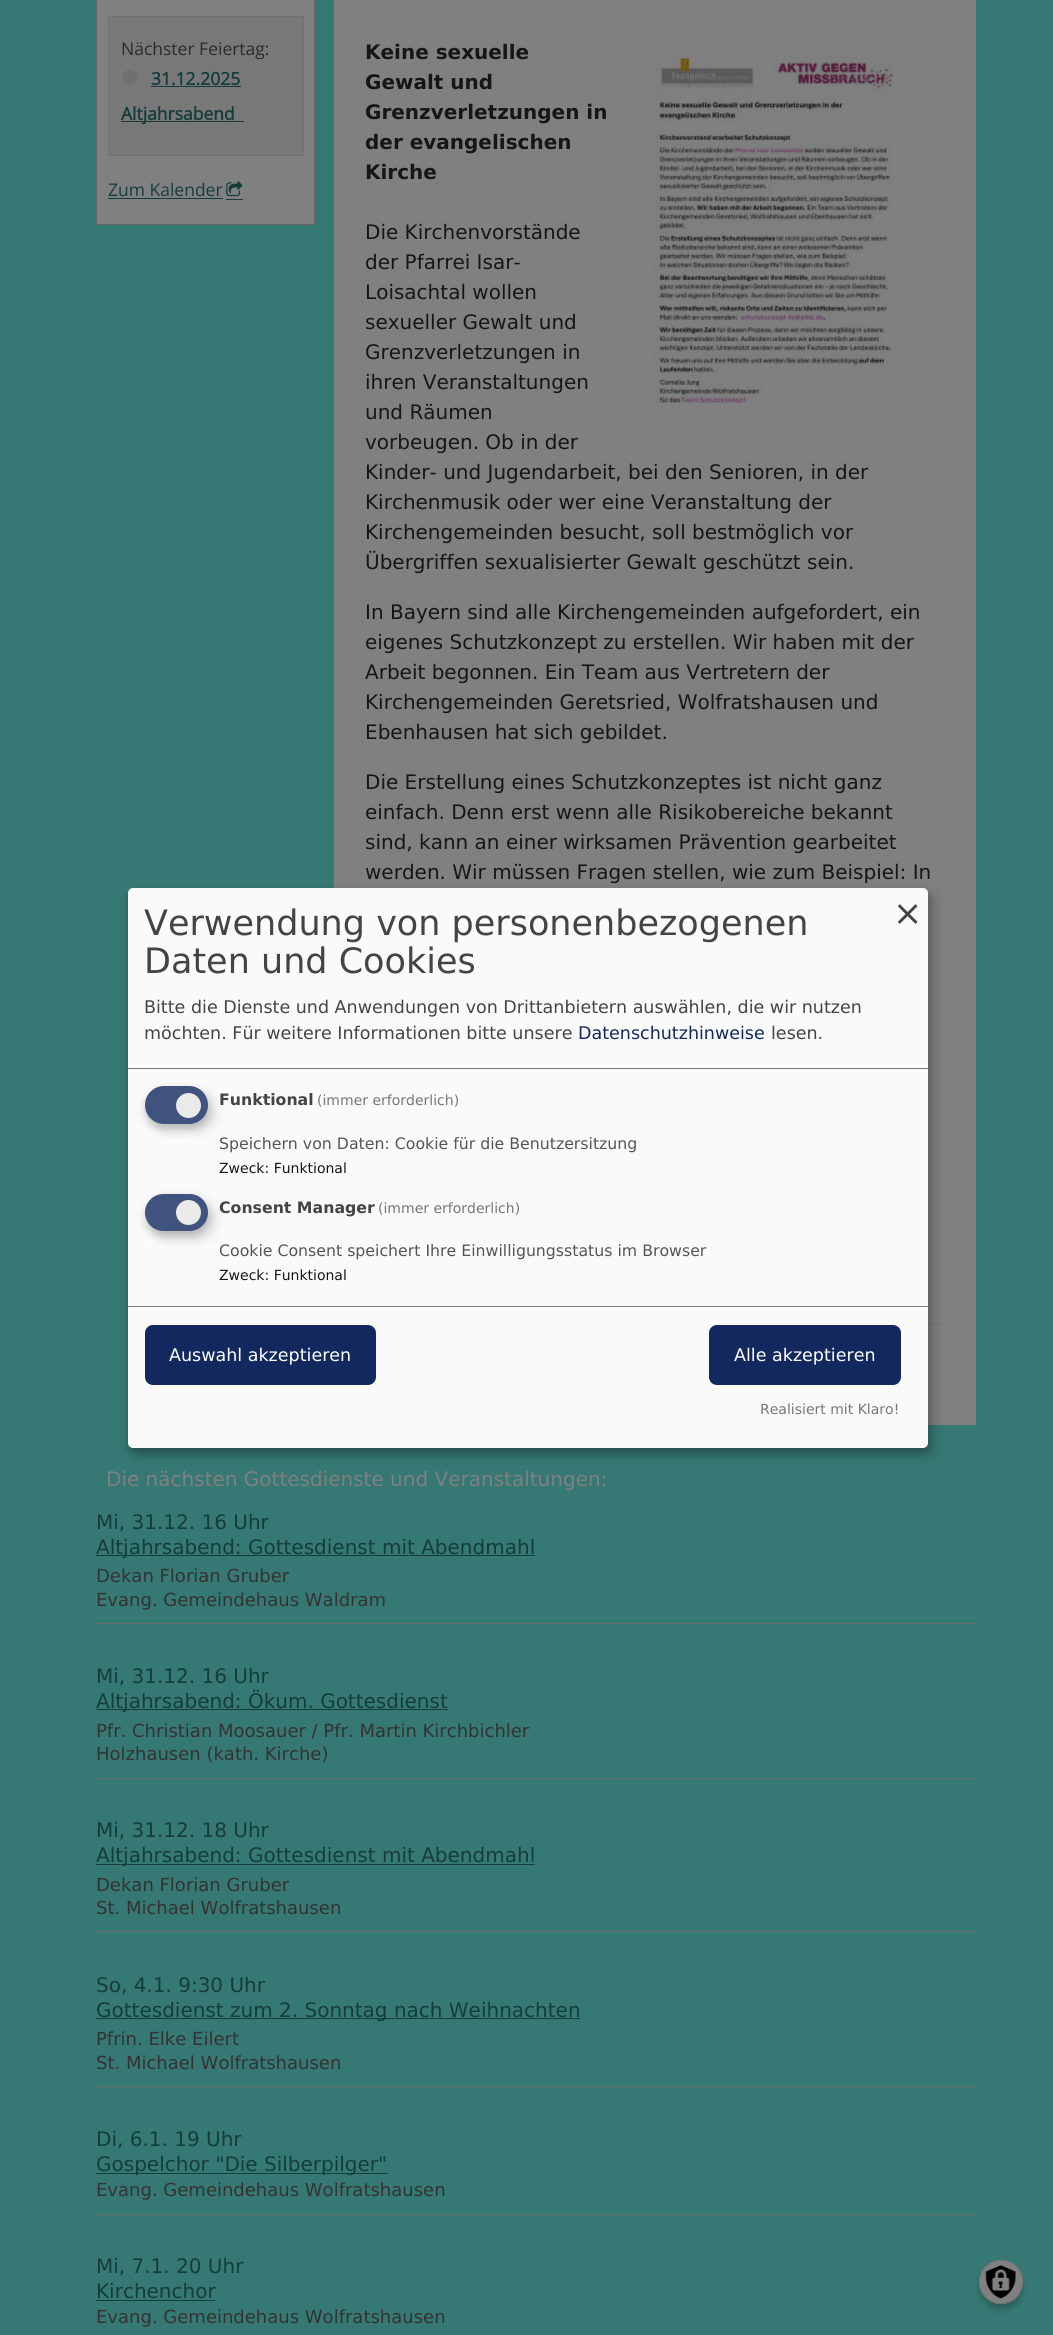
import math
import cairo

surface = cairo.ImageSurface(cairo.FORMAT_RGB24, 1053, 2335)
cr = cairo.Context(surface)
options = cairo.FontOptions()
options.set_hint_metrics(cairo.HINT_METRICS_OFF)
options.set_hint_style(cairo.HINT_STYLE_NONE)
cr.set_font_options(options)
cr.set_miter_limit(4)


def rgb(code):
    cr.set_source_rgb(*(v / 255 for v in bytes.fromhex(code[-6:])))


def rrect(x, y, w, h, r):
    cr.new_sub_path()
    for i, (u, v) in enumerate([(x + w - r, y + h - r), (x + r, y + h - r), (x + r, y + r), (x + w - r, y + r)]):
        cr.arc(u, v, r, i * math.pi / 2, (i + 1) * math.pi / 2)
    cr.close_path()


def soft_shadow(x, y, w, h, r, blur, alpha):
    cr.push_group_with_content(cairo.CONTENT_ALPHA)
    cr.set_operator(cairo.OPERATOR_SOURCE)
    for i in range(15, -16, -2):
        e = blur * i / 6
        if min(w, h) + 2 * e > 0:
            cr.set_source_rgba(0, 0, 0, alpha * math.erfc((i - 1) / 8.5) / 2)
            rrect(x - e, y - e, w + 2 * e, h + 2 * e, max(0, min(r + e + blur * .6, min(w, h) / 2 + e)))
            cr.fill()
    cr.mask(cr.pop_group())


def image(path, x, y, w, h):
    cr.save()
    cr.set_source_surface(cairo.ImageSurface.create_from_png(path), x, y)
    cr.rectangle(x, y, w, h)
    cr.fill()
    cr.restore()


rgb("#367873")
cr.paint()
rgb("#808080")
cr.rectangle(96.5, -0.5, 218, 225)
cr.fill_preserve()
rgb("#666666")
cr.set_line_width(1)
cr.stroke()
rgb("#787878")
cr.rectangle(108.5, 16.5, 195, 139)
cr.fill_preserve()
rgb("#717171")
cr.stroke()
image("img/1.png", 122, 70, 16, 15)
for x, y, w, h, color in [
    (151, 86, 90, 1, "#143d3b"),
    (121, 121, 123, 1, "#143d3b"),
    (108, 198, 115, 1, "#143d3b"),
    (226, 199, 17, 1, "#143d3b"),
]:
    rgb(color)
    cr.rectangle(x, y, w, h)
    cr.fill()
image("img/2.png", 226, 181, 17, 16)
rgb("#808080")
cr.rectangle(334, 0, 642, 1425)
cr.fill()
rgb("#767778")
cr.rectangle(928, 1324, 17, 1)
cr.fill()
image("img/3.png", 653, 53, 240, 351)
for x, y, w, h, color in [
    (96, 1623, 882, 1, "#6b6b6b"),
    (96, 1555, 439, 1, "#143d3b"),
    (96, 1778, 882, 1, "#6b6b6b"),
    (96, 1709, 352, 1, "#143d3b"),
    (96, 1931, 882, 1, "#6b6b6b"),
    (96, 1864, 439, 1, "#143d3b"),
    (96, 2086, 882, 1, "#6b6b6b"),
    (96, 2018, 484, 1, "#143d3b"),
    (96, 2214, 882, 1, "#6b6b6b"),
    (96, 2173, 292, 1, "#143d3b"),
    (96, 2300, 119, 1, "#143d3b"),
]:
    rgb(color)
    cr.rectangle(x, y, w, h)
    cr.fill()
rgb("#000000")
soft_shadow(134, 894, 800, 560, 5, 6, 0.19)
soft_shadow(128, 893, 800, 560, 5, 4, 0.2)
rgb("#fafafa")
rrect(128, 888, 800, 560, 5)
cr.fill()
rgb("#777777")
cr.rectangle(128, 1068, 800, 1)
cr.fill()
rgb("#000000")
soft_shadow(151, 1093, 63, 37, 18.5, 6, 0.15)
rgb("#323232")
soft_shadow(145, 1091, 63, 38, 19, 4, 0.2)
rgb("#40527e")
rrect(145, 1086, 63, 38, 19)
cr.fill()
rgb("#eaeaea")
cr.arc(188.5, 1105.5, 12.5, 0, 2 * math.pi)
cr.fill()
rgb("#000000")
soft_shadow(151, 1200, 63, 38, 19, 6, 0.15)
rgb("#323232")
soft_shadow(145, 1199, 63, 37, 18.5, 4, 0.2)
rgb("#40527e")
rrect(145, 1194, 63, 37, 18.5)
cr.fill()
rgb("#eaeaea")
cr.arc(188.5, 1212.5, 12.5, 0, 2 * math.pi)
cr.fill()
rgb("#777777")
cr.rectangle(128, 1306, 800, 1)
cr.fill()
rgb("#12285f")
rrect(147, 1327, 227, 56, 6)
cr.fill_preserve()
cr.set_line_width(4)
cr.stroke()
rrect(711, 1327, 188, 56, 6)
cr.fill_preserve()
cr.stroke()
rgb("#000000")
soft_shadow(979, 2266, 44, 44, 22, 3, 0.2)
rgb("#808080")
cr.arc(1001, 2282, 22, 0, 2 * math.pi)
cr.fill()
image("img/4.png", 985, 2265, 31, 34)
cr.arc(1001, 2282, 21.5, 0, 2 * math.pi)
rgb("#757575")
cr.set_line_width(1)
cr.stroke()
cr.select_font_face("Open Sans")
cr.set_font_size(17.5)
rgb("#2b2b2b")
cr.move_to(121, 55)
cr.show_text("Nächster Feiertag:")
cr.select_font_face("Open Sans", cairo.FONT_SLANT_NORMAL, cairo.FONT_WEIGHT_BOLD)
rgb("#143d3b")
cr.move_to(151, 85)
cr.show_text("31.12.2025")
cr.move_to(121, 120)
cr.show_text("Altjahrsabend")
cr.select_font_face("Open Sans")
cr.move_to(108, 196)
cr.show_text("Zum Kalender")
cr.select_font_face("DejaVu Sans", cairo.FONT_SLANT_NORMAL, cairo.FONT_WEIGHT_BOLD)
cr.set_font_size(20)
rgb("#151616")
for x, y, s in [
    (365, 59, "Keine sexuelle"),
    (365, 89, "Gewalt und"),
    (365, 119, "Grenzverletzungen in"),
    (365, 149, "der evangelischen"),
    (365, 179, "Kirche"),
]:
    cr.move_to(x, y)
    cr.show_text(s)
cr.select_font_face("DejaVu Sans")
for x, y, s in [
    (365, 239, "Die Kirchenvorstände"),
    (365, 269, "der Pfarrei Isar-"),
    (365, 299, "Loisachtal wollen"),
    (365, 329, "sexueller Gewalt und"),
    (365, 359, "Grenzverletzungen in"),
    (365, 389, "ihren Veranstaltungen"),
    (365, 419, "und Räumen"),
    (365, 449, "vorbeugen. Ob in der"),
    (365, 479, "Kinder- und Jugendarbeit, bei den Senioren, in der"),
    (365, 509, "Kirchenmusik oder wer eine Veranstaltung der"),
    (365, 539, "Kirchengemeinden besucht, soll bestmöglich vor"),
    (365, 569, "Übergriffen sexualisierter Gewalt geschützt sein."),
    (365, 619, "In Bayern sind alle Kirchengemeinden aufgefordert, ein"),
    (365, 649, "eigenes Schutzkonzept zu erstellen. Wir haben mit der"),
    (365, 679, "Arbeit begonnen. Ein Team aus Vertretern der"),
    (365, 709, "Kirchengemeinden Geretsried, Wolfratshausen und"),
    (365, 739, "Ebenhausen hat sich gebildet."),
    (365, 789, "Die Erstellung eines Schutzkonzeptes ist nicht ganz"),
    (365, 819, "einfach. Denn erst wenn alle Risikobereiche bekannt"),
    (365, 849, "sind, kann an einer wirksamen Prävention gearbeitet"),
    (365, 879, "werden. Wir müssen Fragen stellen, wie zum Beispiel: In"),
]:
    cr.move_to(x, y)
    cr.show_text(s)
rgb("#808080")
cr.move_to(106, 1486)
cr.show_text("Die nächsten Gottesdienste und Veranstaltungen:")
rgb("#143d3b")
cr.move_to(96, 1529)
cr.show_text("Mi, 31.12. 16 Uhr")
cr.move_to(96, 1554)
cr.show_text("Altjahrsabend: Gottesdienst mit Abendmahl")
cr.set_font_size(18)
rgb("#333333")
cr.move_to(96, 1582)
cr.show_text("Dekan Florian Gruber")
cr.move_to(96, 1606)
cr.show_text("Evang. Gemeindehaus Waldram")
cr.set_font_size(20)
rgb("#143d3b")
cr.move_to(96, 1683)
cr.show_text("Mi, 31.12. 16 Uhr")
cr.move_to(96, 1708)
cr.show_text("Altjahrsabend: Ökum. Gottesdienst")
cr.set_font_size(18)
rgb("#333333")
cr.move_to(96, 1737)
cr.show_text("Pfr. Christian Moosauer / Pfr. Martin Kirchbichler")
cr.move_to(96, 1760)
cr.show_text("Holzhausen (kath. Kirche)")
cr.set_font_size(20)
rgb("#143d3b")
cr.move_to(96, 1837)
cr.show_text("Mi, 31.12. 18 Uhr")
cr.move_to(96, 1862)
cr.show_text("Altjahrsabend: Gottesdienst mit Abendmahl")
cr.set_font_size(18)
rgb("#333333")
cr.move_to(96, 1891)
cr.show_text("Dekan Florian Gruber")
cr.move_to(96, 1914)
cr.show_text("St. Michael Wolfratshausen")
cr.set_font_size(20)
rgb("#143d3b")
cr.move_to(96, 1992)
cr.show_text("So, 4.1. 9:30 Uhr")
cr.move_to(96, 2017)
cr.show_text("Gottesdienst zum 2. Sonntag nach Weihnachten")
cr.set_font_size(18)
rgb("#333333")
cr.move_to(96, 2045)
cr.show_text("Pfrin. Elke Eilert")
cr.move_to(96, 2069)
cr.show_text("St. Michael Wolfratshausen")
cr.set_font_size(20)
rgb("#143d3b")
cr.move_to(96, 2146)
cr.show_text("Di, 6.1. 19 Uhr")
cr.move_to(96, 2171)
cr.show_text("Gospelchor \"Die Silberpilger\"")
cr.set_font_size(18)
rgb("#333333")
cr.move_to(96, 2196)
cr.show_text("Evang. Gemeindehaus Wolfratshausen")
cr.set_font_size(20)
rgb("#143d3b")
cr.move_to(96, 2273)
cr.show_text("Mi, 7.1. 20 Uhr")
cr.move_to(96, 2298)
cr.show_text("Kirchenchor")
cr.set_font_size(18)
rgb("#333333")
cr.move_to(96, 2323)
cr.show_text("Evang. Gemeindehaus Wolfratshausen")
cr.set_font_size(35)
rgb("#444444")
cr.move_to(144, 935)
cr.show_text("Verwendung von personenbezogenen")
cr.move_to(144, 973)
cr.show_text("Daten und Cookies")
cr.set_font_size(17.5)
cr.move_to(144, 1013)
cr.show_text("Bitte die Dienste und Anwendungen von Drittanbietern auswählen, die wir nutzen")
cr.move_to(144, 1039)
cr.show_text("möchten. Für weitere Informationen bitte unsere")
rgb("#12285f")
cr.move_to(578, 1039)
cr.show_text("Datenschutzhinweise")
rgb("#444444")
cr.move_to(771, 1039)
cr.show_text("lesen.")
cr.set_font_size(35)
cr.move_to(893, 925)
cr.show_text("×")
cr.select_font_face("DejaVu Sans", cairo.FONT_SLANT_NORMAL, cairo.FONT_WEIGHT_BOLD)
cr.set_font_size(15.75)
cr.move_to(219, 1105)
cr.show_text("Funktional")
cr.select_font_face("DejaVu Sans")
cr.set_font_size(14)
rgb("#777777")
cr.move_to(317, 1105)
cr.show_text("(immer erforderlich)")
cr.set_font_size(15.75)
rgb("#555555")
cr.move_to(219, 1149)
cr.show_text("Speichern von Daten: Cookie für die Benutzersitzung")
cr.set_font_size(14)
rgb("#151616")
cr.move_to(219, 1173)
cr.show_text("Zweck: Funktional")
cr.select_font_face("DejaVu Sans", cairo.FONT_SLANT_NORMAL, cairo.FONT_WEIGHT_BOLD)
cr.set_font_size(15.75)
rgb("#444444")
cr.move_to(219, 1213)
cr.show_text("Consent Manager")
cr.select_font_face("DejaVu Sans")
cr.set_font_size(14)
rgb("#777777")
cr.move_to(378, 1213)
cr.show_text("(immer erforderlich)")
cr.set_font_size(15.75)
rgb("#555555")
cr.move_to(219, 1256)
cr.show_text("Cookie Consent speichert Ihre Einwilligungsstatus im Browser")
cr.set_font_size(14)
rgb("#151616")
cr.move_to(219, 1280)
cr.show_text("Zweck: Funktional")
cr.set_font_size(17.5)
rgb("#ffffff")
cr.move_to(169, 1361)
cr.show_text("Auswahl akzeptieren")
cr.move_to(734, 1361)
cr.show_text("Alle akzeptieren")
cr.set_font_size(14)
rgb("#777777")
cr.move_to(760, 1414)
cr.show_text("Realisiert mit Klaro!")
surface.write_to_png("page.png")
